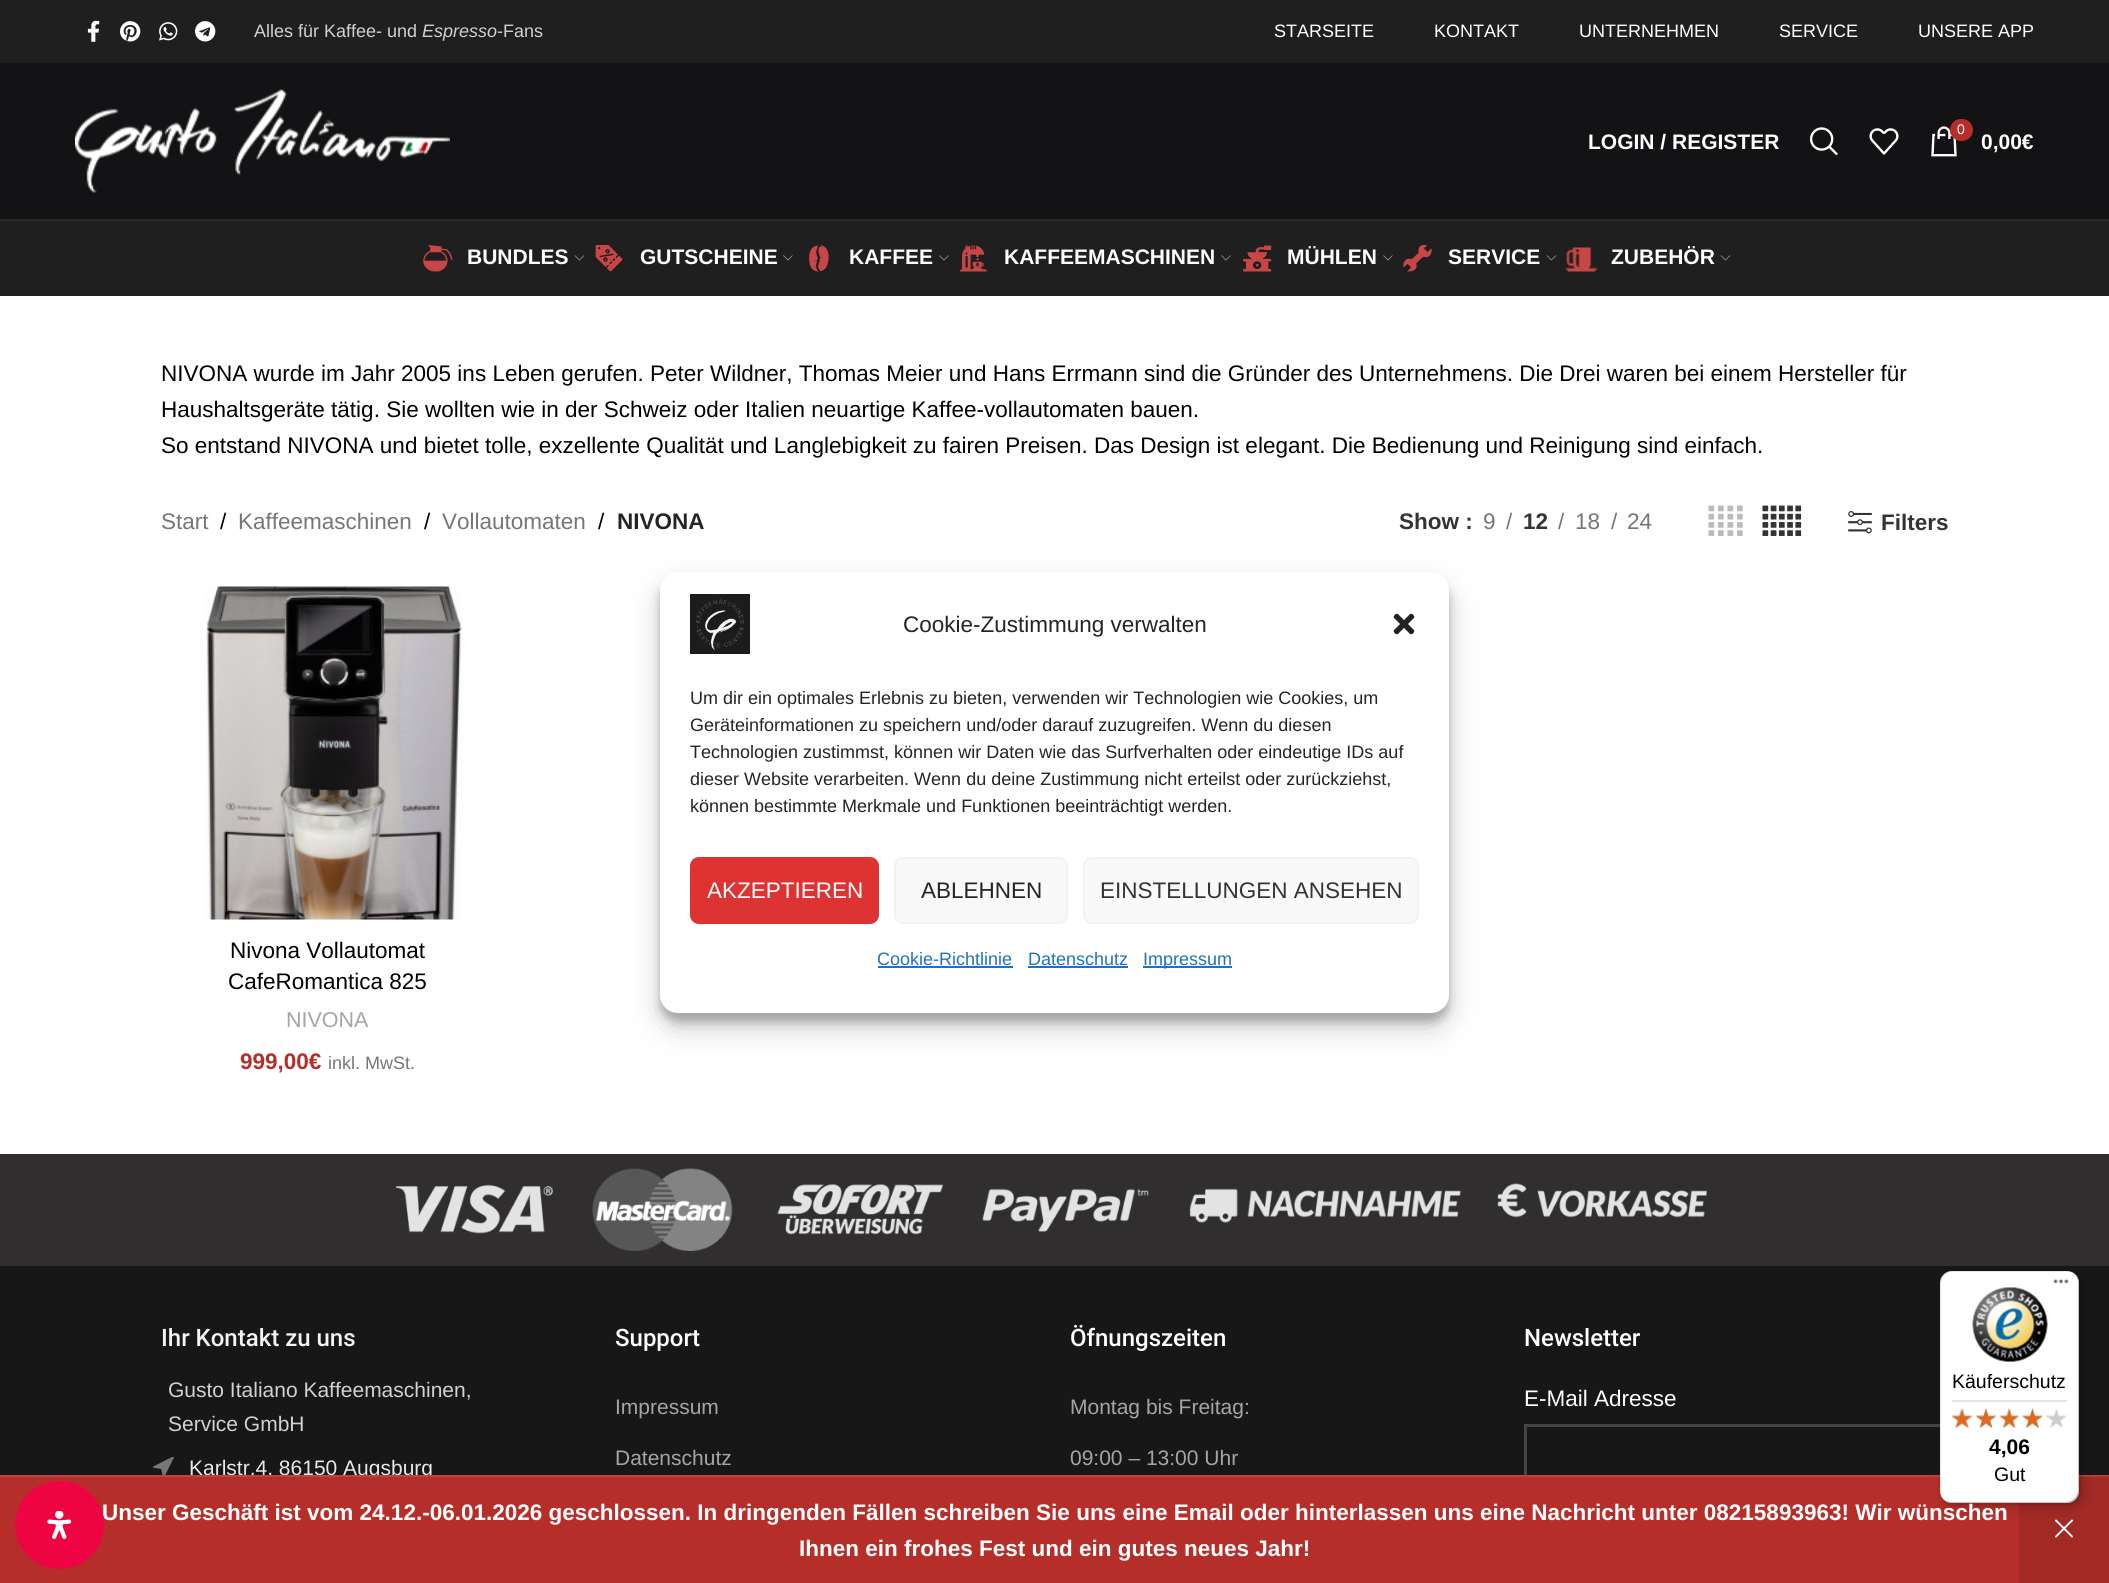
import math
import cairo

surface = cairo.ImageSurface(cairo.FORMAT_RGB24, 2109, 1583)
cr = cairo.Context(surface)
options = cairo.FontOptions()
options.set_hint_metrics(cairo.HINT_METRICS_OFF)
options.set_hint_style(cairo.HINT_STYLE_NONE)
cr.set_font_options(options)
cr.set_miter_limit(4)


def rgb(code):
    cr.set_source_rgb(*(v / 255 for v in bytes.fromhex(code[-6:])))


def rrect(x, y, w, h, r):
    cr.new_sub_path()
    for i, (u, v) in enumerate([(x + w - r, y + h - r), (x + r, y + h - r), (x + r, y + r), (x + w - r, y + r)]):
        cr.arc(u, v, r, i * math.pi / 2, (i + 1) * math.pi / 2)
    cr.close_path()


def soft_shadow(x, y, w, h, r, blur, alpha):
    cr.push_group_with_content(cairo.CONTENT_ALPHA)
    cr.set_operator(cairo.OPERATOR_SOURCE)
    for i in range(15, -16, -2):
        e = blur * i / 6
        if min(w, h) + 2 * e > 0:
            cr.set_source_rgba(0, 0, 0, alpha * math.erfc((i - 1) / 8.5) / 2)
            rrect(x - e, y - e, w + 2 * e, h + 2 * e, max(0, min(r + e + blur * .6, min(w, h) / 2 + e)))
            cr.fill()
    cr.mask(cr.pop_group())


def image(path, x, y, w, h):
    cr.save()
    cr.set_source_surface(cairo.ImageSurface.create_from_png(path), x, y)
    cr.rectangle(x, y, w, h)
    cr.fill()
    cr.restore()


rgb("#ffffff")
cr.paint()
rgb("#1f1f1f")
cr.rectangle(0, 0, 2109, 63)
cr.fill()
image("img/1.png", 87, 20, 13, 22)
image("img/2.png", 120, 21, 21, 21)
image("img/3.png", 159, 22, 19, 19)
image("img/4.png", 195, 21, 21, 21)
rgb("#131315")
cr.rectangle(0, 63, 2109, 156)
cr.fill()
rgb("#29292b")
cr.rectangle(0, 219, 2109, 2)
cr.fill()
image("img/5.png", 75, 89, 375, 104)
image("img/6.png", 1810, 127, 28, 29)
image("img/7.png", 1869, 128, 30, 27)
image("img/8.png", 1931, 126, 26, 31)
rgb("#b52e29")
rrect(1950, 119, 23, 22, 11)
cr.fill()
rgb("#1f1f1f")
cr.rectangle(0, 221, 2109, 75)
cr.fill()
image("img/9.png", 423, 245, 30, 27)
image("img/10.png", 574, 255, 11, 6)
image("img/11.png", 595, 245, 28, 27)
image("img/12.png", 783, 255, 10, 6)
image("img/13.png", 809, 245, 20, 27)
image("img/12.png", 939, 255, 10, 6)
image("img/14.png", 959, 245, 28, 27)
image("img/12.png", 1221, 255, 10, 6)
image("img/15.png", 1243, 245, 29, 27)
image("img/12.png", 1383, 255, 10, 6)
image("img/16.png", 1403, 245, 29, 27)
image("img/10.png", 1546, 255, 11, 6)
image("img/17.png", 1565, 247, 33, 25)
image("img/10.png", 1720, 255, 11, 6)
image("img/18.png", 1708, 505, 35, 31)
image("img/19.png", 1762, 505, 40, 31)
image("img/20.png", 1848, 511, 24, 23)
image("img/21.png", 206, 586, 256, 334)
rgb("#302e2e")
cr.rectangle(0, 1154, 2109, 112)
cr.fill()
image("img/22.png", 396, 1168, 1311, 83)
rgb("#181717")
cr.rectangle(0, 1266, 2109, 209)
cr.fill()
image("img/23.png", 153, 1457, 21, 18)
cr.rectangle(1525.5, 1425.5, 422, 60)
rgb("#464545")
cr.set_line_width(3)
cr.stroke()
rgb("#000000")
soft_shadow(660, 581, 789, 441, 18, 4.5, 0.23)
soft_shadow(660, 587, 789, 441, 18, 15, 0.19)
rgb("#ffffff")
rrect(660, 572, 789, 441, 18)
cr.fill()
image("img/24.png", 690, 594, 60, 60)
image("img/25.png", 1393, 613, 22, 22)
rgb("#dd3333")
rrect(691, 858, 187, 65, 8)
cr.fill_preserve()
cr.set_line_width(2)
cr.stroke()
rgb("#f9f9f9")
rrect(895, 858, 172, 65, 8)
cr.fill_preserve()
rgb("#f2f2f2")
cr.stroke()
rgb("#f9f9f9")
rrect(1084, 858, 334, 65, 8)
cr.fill_preserve()
rgb("#f2f2f2")
cr.stroke()
for x, y, w, h, color in [
    (878, 966, 135, 2, "#1e73be"),
    (1028, 966, 100, 2, "#1e73be"),
    (1143, 966, 89, 2, "#1e73be"),
    (2019, 1477, 90, 106, "#a32925"),
]:
    rgb(color)
    cr.rectangle(x, y, w, h)
    cr.fill()
image("img/39.png", 2054, 1519, 20, 19)
cr.select_font_face("Liberation Sans")
cr.set_font_size(18)
rgb("#d1d1d1")
cr.move_to(254, 37)
cr.show_text("Alles für Kaffee- und")
cr.select_font_face("Liberation Sans", cairo.FONT_SLANT_ITALIC)
cr.move_to(422, 37)
cr.show_text("Espresso")
cr.select_font_face("Liberation Sans")
cr.move_to(497, 37)
cr.show_text("-Fans")
rgb("#ffffff")
for x, y, s in [
    (1274, 37, "STARSEITE"),
    (1434, 37, "KONTAKT"),
    (1579, 37, "UNTERNEHMEN"),
    (1779, 37, "SERVICE"),
    (1918, 37, "UNSERE APP"),
]:
    cr.move_to(x, y)
    cr.show_text(s)
cr.select_font_face("Liberation Sans", cairo.FONT_SLANT_NORMAL, cairo.FONT_WEIGHT_BOLD)
cr.set_font_size(21)
cr.move_to(1588, 149)
cr.show_text("LOGIN / REGISTER")
cr.select_font_face("Liberation Sans")
cr.set_font_size(14)
cr.move_to(1957, 134)
cr.show_text("0")
cr.select_font_face("Liberation Sans", cairo.FONT_SLANT_NORMAL, cairo.FONT_WEIGHT_BOLD)
cr.set_font_size(21)
for x, y, s in [
    (1981, 149, "0,00€"),
    (467, 264, "BUNDLES"),
    (640, 264, "GUTSCHEINE"),
    (849, 264, "KAFFEE"),
    (1004, 264, "KAFFEEMASCHINEN"),
    (1287, 264, "MÜHLEN"),
    (1448, 264, "SERVICE"),
    (1611, 264, "ZUBEHÖR"),
]:
    cr.move_to(x, y)
    cr.show_text(s)
cr.select_font_face("Liberation Sans")
cr.set_font_size(22.5)
rgb("#000000")
for x, y, s in [
    (161, 381, "NIVONA wurde im Jahr 2005 ins Leben gerufen. Peter Wildner, Thomas Meier und Hans Errmann sind die Gründer des Unternehmens. Die Drei waren bei einem Hersteller für"),
    (161, 417, "Haushaltsgeräte tätig. Sie wollten wie in der Schweiz oder Italien neuartige Kaffee-vollautomaten bauen."),
    (161, 453, "So entstand NIVONA und bietet tolle, exzellente Qualität und Langlebigkeit zu fairen Preisen. Das Design ist elegant. Die Bedienung und Reinigung sind einfach."),
]:
    cr.move_to(x, y)
    cr.show_text(s)
rgb("#767676")
cr.move_to(161, 529)
cr.show_text("Start")
rgb("#000000")
cr.move_to(220, 529)
cr.show_text("/")
rgb("#767676")
cr.move_to(238, 529)
cr.show_text("Kaffeemaschinen")
rgb("#000000")
cr.move_to(424, 529)
cr.show_text("/")
rgb("#767676")
cr.move_to(442, 529)
cr.show_text("Vollautomaten")
rgb("#000000")
cr.move_to(598, 529)
cr.show_text("/")
cr.select_font_face("Liberation Sans", cairo.FONT_SLANT_NORMAL, cairo.FONT_WEIGHT_BOLD)
rgb("#242424")
cr.move_to(617, 529)
cr.show_text("NIVONA")
rgb("#333333")
cr.move_to(1399, 529)
cr.show_text("Show :")
cr.select_font_face("Liberation Sans")
rgb("#767676")
cr.move_to(1483, 529)
cr.show_text("9")
cr.move_to(1506, 529)
cr.show_text("/")
cr.select_font_face("Liberation Sans", cairo.FONT_SLANT_NORMAL, cairo.FONT_WEIGHT_BOLD)
rgb("#333333")
cr.move_to(1523, 529)
cr.show_text("12")
cr.select_font_face("Liberation Sans")
rgb("#767676")
for x, y, s in [
    (1558, 529, "/"),
    (1575, 529, "18"),
    (1611, 529, "/"),
    (1627, 529, "24"),
]:
    cr.move_to(x, y)
    cr.show_text(s)
cr.select_font_face("Liberation Sans", cairo.FONT_SLANT_NORMAL, cairo.FONT_WEIGHT_BOLD)
rgb("#333333")
cr.move_to(1881, 530)
cr.show_text("Filters")
cr.select_font_face("Liberation Sans")
rgb("#000000")
cr.move_to(230, 958)
cr.show_text("Nivona Vollautomat")
cr.move_to(228, 989)
cr.show_text("CafeRomantica 825")
cr.set_font_size(21.5)
rgb("#a5a5a5")
cr.move_to(286, 1027)
cr.show_text("NIVONA")
cr.select_font_face("Liberation Sans", cairo.FONT_SLANT_NORMAL, cairo.FONT_WEIGHT_BOLD)
cr.set_font_size(22.5)
rgb("#b52e29")
cr.move_to(240, 1069)
cr.show_text("999,00€")
cr.select_font_face("Liberation Sans")
cr.set_font_size(18)
rgb("#767676")
cr.move_to(328, 1069)
cr.show_text("inkl. MwSt.")
cr.select_font_face("Roboto Medium")
cr.set_font_size(24)
rgb("#f4f4f4")
cr.move_to(161, 1346)
cr.show_text("Ihr Kontakt zu uns")
cr.select_font_face("Liberation Sans")
cr.set_font_size(21)
rgb("#d1d1d1")
cr.move_to(168, 1397)
cr.show_text("Gusto Italiano Kaffeemaschinen,")
cr.move_to(168, 1431)
cr.show_text("Service GmbH")
rgb("#e8e8e8")
cr.move_to(189, 1475)
cr.show_text("Karlstr.4, 86150 Augsburg")
cr.select_font_face("Roboto Medium")
cr.set_font_size(24)
rgb("#ffffff")
cr.move_to(615, 1346)
cr.show_text("Support")
cr.select_font_face("Liberation Sans")
cr.set_font_size(21)
rgb("#a5a5a5")
cr.move_to(615, 1414)
cr.show_text("Impressum")
cr.move_to(615, 1465)
cr.show_text("Datenschutz")
cr.select_font_face("Roboto Medium")
cr.set_font_size(24)
rgb("#ffffff")
cr.move_to(1070, 1346)
cr.show_text("Öfnungszeiten")
cr.select_font_face("Liberation Sans")
cr.set_font_size(21)
rgb("#a5a5a5")
cr.move_to(1070, 1414)
cr.show_text("Montag bis Freitag:")
cr.move_to(1070, 1465)
cr.show_text("09:00 – 13:00 Uhr")
cr.select_font_face("Roboto Medium")
cr.set_font_size(24)
rgb("#ffffff")
cr.move_to(1524, 1346)
cr.show_text("Newsletter")
cr.select_font_face("Liberation Sans")
cr.set_font_size(22.5)
cr.move_to(1524, 1406)
cr.show_text("E-Mail Adresse")
rgb("#242424")
cr.move_to(903, 632)
cr.show_text("Cookie-Zustimmung verwalten")
cr.set_font_size(18)
for x, y, s in [
    (690, 704, "Um dir ein optimales Erlebnis zu bieten, verwenden wir Technologien wie Cookies, um"),
    (690, 731, "Geräteinformationen zu speichern und/oder darauf zuzugreifen. Wenn du diesen"),
    (690, 758, "Technologien zustimmst, können wir Daten wie das Surfverhalten oder eindeutige IDs auf"),
    (690, 785, "dieser Website verarbeiten. Wenn du deine Zustimmung nicht erteilst oder zurückziehst,"),
    (690, 812, "können bestimmte Merkmale und Funktionen beeinträchtigt werden."),
]:
    cr.move_to(x, y)
    cr.show_text(s)
cr.set_font_size(22.5)
rgb("#ffffff")
cr.move_to(707, 898)
cr.show_text("AKZEPTIEREN")
rgb("#242424")
cr.move_to(921, 898)
cr.show_text("ABLEHNEN")
rgb("#333333")
cr.move_to(1100, 898)
cr.show_text("EINSTELLUNGEN ANSEHEN")
cr.set_font_size(18)
rgb("#1e73be")
for x, y, s in [
    (877, 965, "Cookie-Richtlinie"),
    (1028, 965, "Datenschutz"),
    (1143, 965, "Impressum"),
]:
    cr.move_to(x, y)
    cr.show_text(s)
for x, y, w, h, color in [
    (0, 1477, 2019, 106, "#b52e29"),
    (0, 1475, 2109, 2, "#bc433e"),
    (2079, 1476, 30, 1, "#a93c38"),
]:
    rgb(color)
    cr.rectangle(x, y, w, h)
    cr.fill()
rgb("#000000")
soft_shadow(1941, 1272, 140, 233, 12, 1.5, 0.15)
soft_shadow(1944, 1275, 140, 233, 12, 6, 0.15)
rgb("#ffffff")
rrect(1940, 1271, 139, 232, 12)
cr.fill()
cr.set_source_rgba(0, 0, 0, 0.1)
cr.new_path()
cr.move_to(1953, 1272)
cr.line_to(2068, 1272)
cr.curve_to(2071, 1272, 2073, 1273, 2075, 1274)
cr.curve_to(2073, 1272, 2070, 1271, 2067, 1271)
cr.line_to(1952, 1271)
cr.curve_to(1945, 1271, 1940, 1276, 1940, 1283)
cr.line_to(1940, 1491)
cr.curve_to(1940, 1494, 1941, 1497, 1943, 1499)
cr.curve_to(1942, 1497, 1941, 1495, 1941, 1492)
cr.line_to(1941, 1284)
cr.curve_to(1941, 1277, 1946, 1272, 1953, 1272)
cr.close_path()
cr.fill()
cr.set_source_rgba(0, 0, 0, 0.2)
cr.new_path()
cr.move_to(1946, 1501)
cr.curve_to(1947, 1502, 1950, 1503, 1952, 1503)
cr.line_to(2067, 1503)
cr.curve_to(2074, 1503, 2079, 1498, 2079, 1491)
cr.line_to(2079, 1283)
cr.curve_to(2079, 1281, 2078, 1278, 2077, 1277)
cr.line_to(2078, 1281)
cr.line_to(2078, 1490)
cr.curve_to(2078, 1496, 2072, 1502, 2066, 1502)
cr.line_to(1950, 1502)
cr.close_path()
cr.fill()
cr.set_source_rgba(0.196, 0.196, 0.196, 0.2)
cr.new_path()
cr.move_to(1944, 1500)
cr.curve_to(1946, 1502, 1949, 1503, 1952, 1503)
cr.line_to(2067, 1503)
cr.curve_to(2074, 1503, 2079, 1498, 2079, 1491)
cr.line_to(2079, 1283)
cr.curve_to(2079, 1280, 2078, 1277, 2076, 1275)
cr.curve_to(2077, 1277, 2078, 1279, 2078, 1282)
cr.line_to(2078, 1490)
cr.curve_to(2078, 1497, 2073, 1502, 2066, 1502)
cr.line_to(1951, 1502)
cr.curve_to(1948, 1502, 1946, 1501, 1944, 1500)
cr.close_path()
cr.fill()
cr.set_source_rgba(1, 1, 1, 0.3)
cr.new_path()
cr.move_to(1944, 1500)
cr.curve_to(1946, 1502, 1949, 1503, 1952, 1503)
cr.line_to(2067, 1503)
cr.curve_to(2074, 1503, 2079, 1498, 2079, 1491)
cr.line_to(2079, 1283)
cr.curve_to(2079, 1280, 2078, 1277, 2076, 1275)
cr.curve_to(2077, 1277, 2078, 1279, 2078, 1282)
cr.line_to(2078, 1490)
cr.curve_to(2078, 1497, 2073, 1502, 2066, 1502)
cr.line_to(1951, 1502)
cr.curve_to(1948, 1502, 1946, 1501, 1944, 1500)
cr.close_path()
cr.fill()
image("img/26.png", 2053, 1279, 16, 5)
image("img/37.png", 2046, 1409, 21, 19)
image("img/32.png", 2046, 1415, 2, 3)
image("img/36.png", 2022, 1408, 21, 20)
image("img/31.png", 2022, 1408, 21, 20)
image("img/35.png", 1999, 1408, 20, 20)
image("img/30.png", 1999, 1408, 20, 20)
image("img/34.png", 1976, 1408, 20, 20)
image("img/29.png", 1976, 1408, 20, 20)
image("img/33.png", 1952, 1409, 20, 19)
image("img/28.png", 1951, 1408, 22, 20)
cr.set_font_size(19.5)
rgb("#000000")
cr.move_to(1994, 1481)
cr.show_text("Gut")
cr.select_font_face("Liberation Sans", cairo.FONT_SLANT_NORMAL, cairo.FONT_WEIGHT_BOLD)
cr.set_font_size(21)
cr.move_to(1989, 1454)
cr.show_text("4,06")
cr.select_font_face("Liberation Sans")
cr.set_font_size(19.5)
cr.move_to(1952, 1388)
cr.show_text("Käuferschutz")
image("img/27.png", 1972, 1287, 76, 75)
rgb("#e5e5e5")
cr.rectangle(1952, 1400, 115, 2)
cr.fill()
cr.select_font_face("Liberation Sans", cairo.FONT_SLANT_NORMAL, cairo.FONT_WEIGHT_BOLD)
cr.set_font_size(22.5)
rgb("#ffffff")
cr.move_to(102, 1520)
cr.show_text("Unser Geschäft ist vom 24.12.-06.01.2026 geschlossen. In dringenden Fällen schreiben Sie uns eine Email oder hinterlassen uns eine Nachricht unter 08215893963! Wir wünschen")
rgb("#ef0443")
rrect(15, 1481, 89, 88, 44)
cr.fill()
image("img/38.png", 47, 1511, 25, 28)
rgb("#ffffff")
cr.move_to(799, 1556)
cr.show_text("Ihnen ein frohes Fest und ein gutes neues Jahr!")
surface.write_to_png("page.png")
